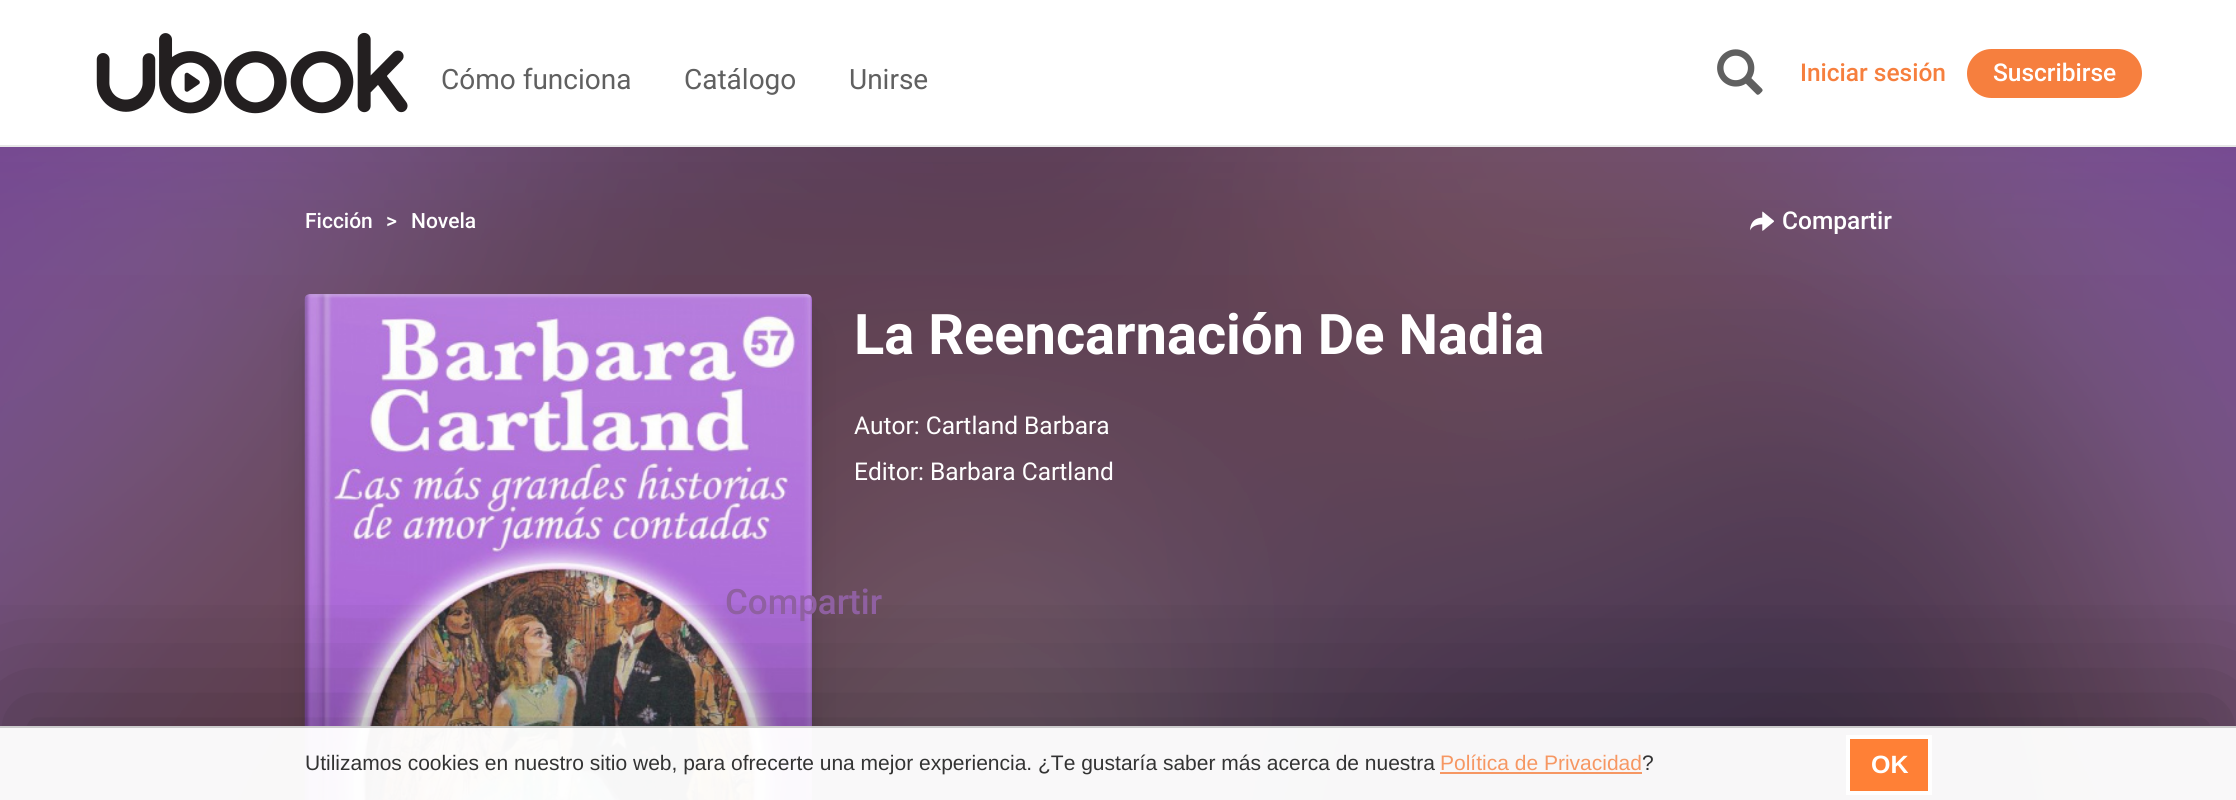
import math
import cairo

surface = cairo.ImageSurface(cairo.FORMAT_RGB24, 2236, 800)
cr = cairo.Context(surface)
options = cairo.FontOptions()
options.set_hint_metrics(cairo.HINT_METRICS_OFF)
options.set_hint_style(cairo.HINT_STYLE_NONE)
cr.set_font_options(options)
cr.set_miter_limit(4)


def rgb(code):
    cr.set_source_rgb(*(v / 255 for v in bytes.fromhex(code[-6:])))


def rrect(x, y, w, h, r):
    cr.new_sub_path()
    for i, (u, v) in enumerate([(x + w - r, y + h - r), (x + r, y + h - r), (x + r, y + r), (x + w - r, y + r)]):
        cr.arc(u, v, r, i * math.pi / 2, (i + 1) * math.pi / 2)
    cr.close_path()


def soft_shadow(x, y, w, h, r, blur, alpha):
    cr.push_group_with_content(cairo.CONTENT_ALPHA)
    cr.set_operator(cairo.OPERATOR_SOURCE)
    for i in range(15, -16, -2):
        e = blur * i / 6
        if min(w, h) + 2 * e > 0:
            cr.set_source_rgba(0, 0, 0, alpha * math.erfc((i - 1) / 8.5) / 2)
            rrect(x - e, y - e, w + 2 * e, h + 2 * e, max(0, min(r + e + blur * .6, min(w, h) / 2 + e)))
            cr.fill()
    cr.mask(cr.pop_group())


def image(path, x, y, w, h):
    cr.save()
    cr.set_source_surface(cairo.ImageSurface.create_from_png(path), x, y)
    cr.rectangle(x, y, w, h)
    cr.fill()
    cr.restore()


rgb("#ffffff")
cr.paint()
rgb("#e7e7e7")
cr.rectangle(0, 145, 2236, 2)
cr.fill()
image("img/1.png", 96, 32, 312, 82)
image("img/2.png", 1717, 49, 46, 46)
rgb("#f67f3e")
rrect(1967, 49, 175, 49, 24.5)
cr.fill()
rgb("#764096")
cr.rectangle(0, 147, 2236, 653)
cr.fill()
image("img/3.png", 0, 147, 2236, 653)
image("img/4.png", 1750, 211, 24, 20)
rgb("#000000")
soft_shadow(312, 308, 493, 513, 0, 7, 0.2)
soft_shadow(319, 336, 479, 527, 0, 21, 0.2)
image("img/5.png", 304, 294, 508, 506)
cr.save()
cr.rectangle(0, 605, 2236, 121)
cr.clip()
soft_shadow(14, 705, 2209, 48, 0, 74.5, 0.3)
cr.restore()
cr.set_source_rgba(1, 1, 1, 0.96)
cr.rectangle(0, 726, 2236, 74)
cr.fill()
cr.set_source_rgba(0, 0, 0, 0.18)
cr.rectangle(0, 726, 2236, 2)
cr.fill()
rgb("#f69763")
cr.rectangle(1440, 772, 202, 2)
cr.fill()
rgb("#ff8036")
cr.rectangle(1848, 737, 82, 56)
cr.fill_preserve()
rgb("#ffffff")
cr.set_line_width(4)
cr.stroke()
cr.select_font_face("Roboto")
cr.set_font_size(28)
rgb("#606060")
for x, y, s in [
    (441, 89, "Cómo funciona"),
    (684, 89, "Catálogo"),
    (849, 89, "Unirse"),
]:
    cr.move_to(x, y)
    cr.show_text(s)
cr.select_font_face("Roboto Medium")
cr.set_font_size(24.5)
rgb("#f67f3e")
cr.move_to(1800, 81)
cr.show_text("Iniciar sesión")
rgb("#ffffff")
cr.move_to(1993, 81)
cr.show_text("Suscribirse")
cr.set_font_size(21)
for x, y, s in [
    (305, 228, "Ficción"),
    (386, 228, ">"),
    (411, 228, "Novela"),
]:
    cr.move_to(x, y)
    cr.show_text(s)
cr.set_font_size(24.5)
cr.move_to(1782, 229)
cr.show_text("Compartir")
cr.select_font_face("Roboto", cairo.FONT_SLANT_NORMAL, cairo.FONT_WEIGHT_BOLD)
cr.set_font_size(56)
cr.move_to(854, 354)
cr.show_text("La Reencarnación De Nadia")
cr.select_font_face("Roboto")
cr.set_font_size(24.5)
cr.move_to(854, 434)
cr.show_text("Autor: Cartland Barbara")
cr.move_to(854, 480)
cr.show_text("Editor: Barbara Cartland")
cr.select_font_face("Liberation Sans")
cr.set_font_size(21)
rgb("#333333")
cr.move_to(305, 770)
cr.show_text("Utilizamos cookies en nuestro sitio web, para ofrecerte una mejor experiencia. ¿Te gustaría saber más acerca de nuestra")
rgb("#f69763")
cr.move_to(1440, 770)
cr.show_text("Política de Privacidad")
rgb("#333333")
cr.move_to(1642, 770)
cr.show_text("?")
cr.select_font_face("Liberation Sans", cairo.FONT_SLANT_NORMAL, cairo.FONT_WEIGHT_BOLD)
cr.set_font_size(25)
rgb("#ffffff")
cr.move_to(1871, 773)
cr.show_text("OK")
cr.select_font_face("Roboto Medium")
cr.set_font_size(35)
rgb("#8f60a1")
cr.move_to(725, 614)
cr.show_text("Compartir")
surface.write_to_png("page.png")
